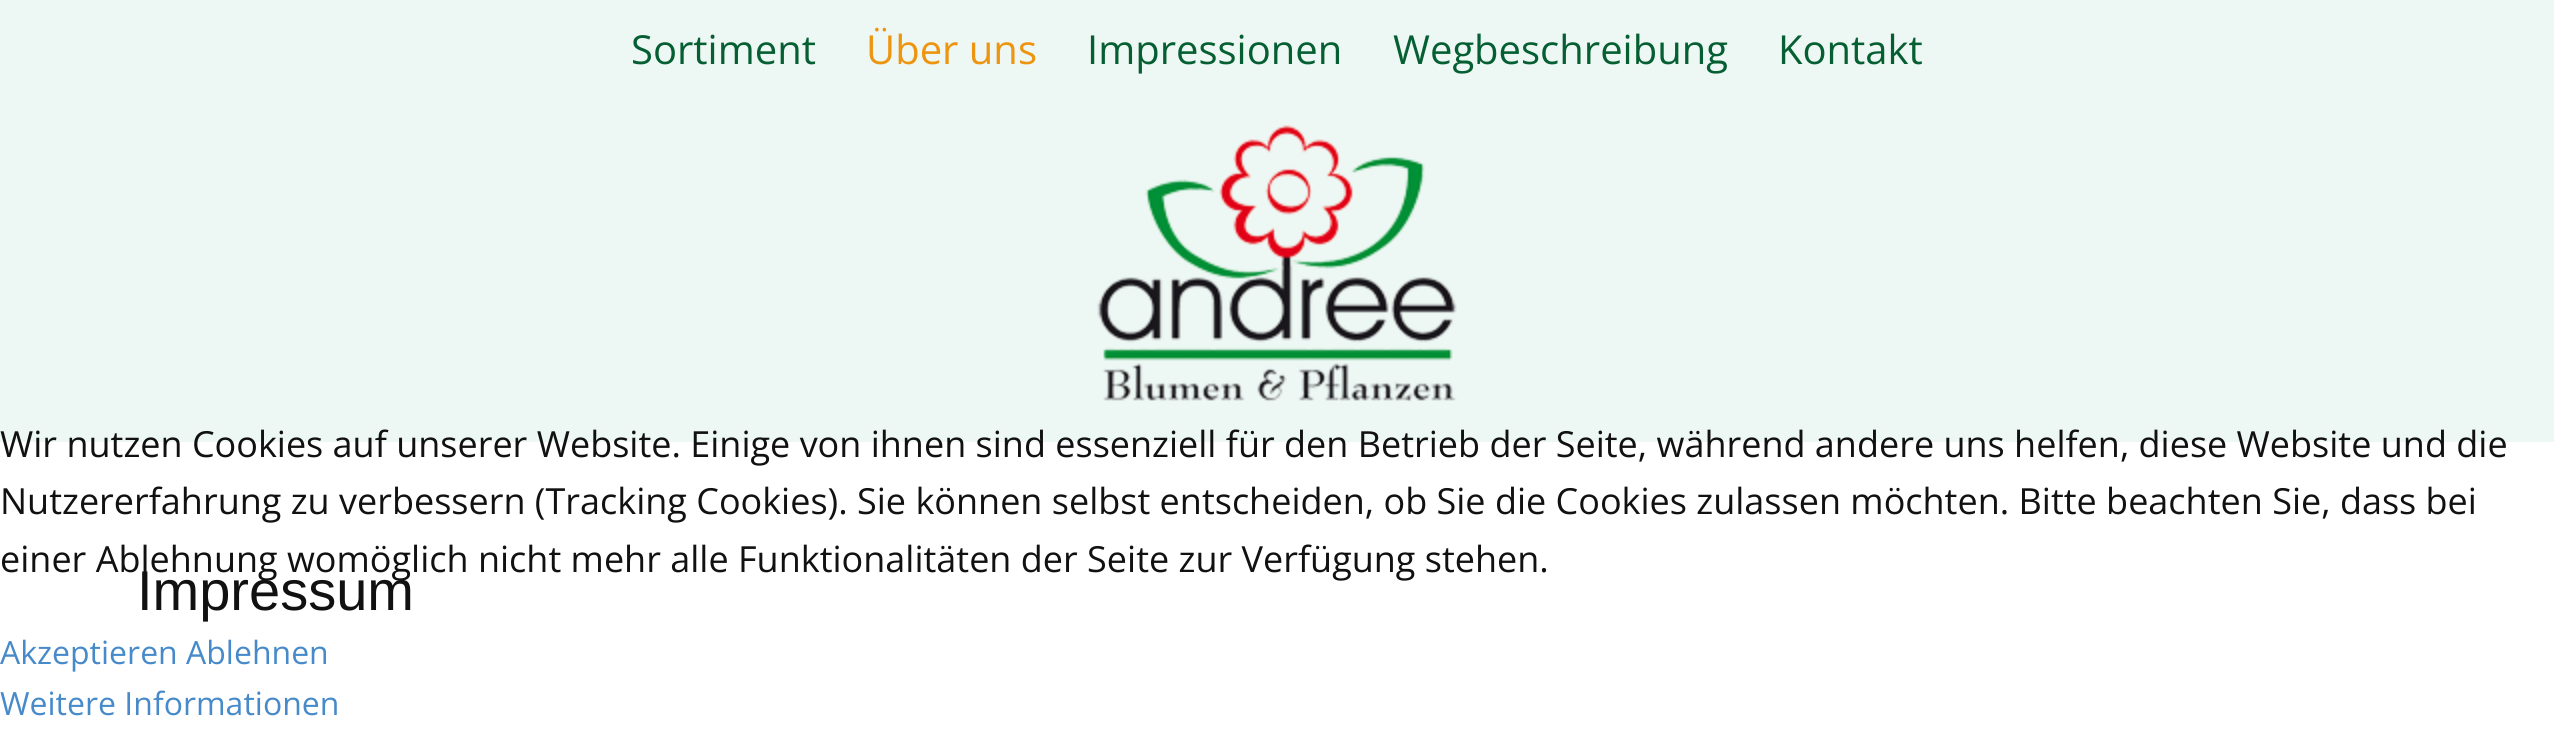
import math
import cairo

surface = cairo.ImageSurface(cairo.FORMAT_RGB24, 2554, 730)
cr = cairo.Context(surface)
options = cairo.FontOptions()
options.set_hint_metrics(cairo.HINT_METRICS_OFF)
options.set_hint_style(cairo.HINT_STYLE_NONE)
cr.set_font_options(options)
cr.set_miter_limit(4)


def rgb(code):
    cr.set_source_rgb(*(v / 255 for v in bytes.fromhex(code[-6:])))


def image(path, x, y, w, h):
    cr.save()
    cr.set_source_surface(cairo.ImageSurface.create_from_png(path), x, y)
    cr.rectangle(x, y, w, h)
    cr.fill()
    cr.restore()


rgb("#ffffff")
cr.paint()
rgb("#edf7f3")
cr.rectangle(0, 0, 2554, 442)
cr.fill()
image("img/1.png", 1097, 125, 360, 277)
cr.select_font_face("Open Sans")
cr.set_font_size(40)
rgb("#055f33")
cr.move_to(631, 64)
cr.show_text("Sortiment")
rgb("#ed9510")
cr.move_to(866, 64)
cr.show_text("Über uns")
rgb("#055f33")
for x, y, s in [
    (1087, 64, "Impressionen"),
    (1393, 64, "Wegbeschreibung"),
    (1778, 64, "Kontakt"),
]:
    cr.move_to(x, y)
    cr.show_text(s)
cr.set_font_size(36)
rgb("#111111")
for x, y, s in [
    (0, 457, "Wir nutzen Cookies auf unserer Website. Einige von ihnen sind essenziell für den Betrieb der Seite, während andere uns helfen, diese Website und die"),
    (0, 514, "Nutzererfahrung zu verbessern (Tracking Cookies). Sie können selbst entscheiden, ob Sie die Cookies zulassen möchten. Bitte beachten Sie, dass bei"),
    (0, 572, "einer Ablehnung womöglich nicht mehr alle Funktionalitäten der Seite zur Verfügung stehen."),
]:
    cr.move_to(x, y)
    cr.show_text(s)
cr.set_font_size(32)
rgb("#478ac9")
cr.move_to(0, 664)
cr.show_text("Akzeptieren Ablehnen")
cr.move_to(0, 715)
cr.show_text("Weitere Informationen")
cr.select_font_face("Liberation Sans")
cr.set_font_size(56)
rgb("#111111")
cr.move_to(137, 610)
cr.show_text("Impressum")
surface.write_to_png("page.png")
